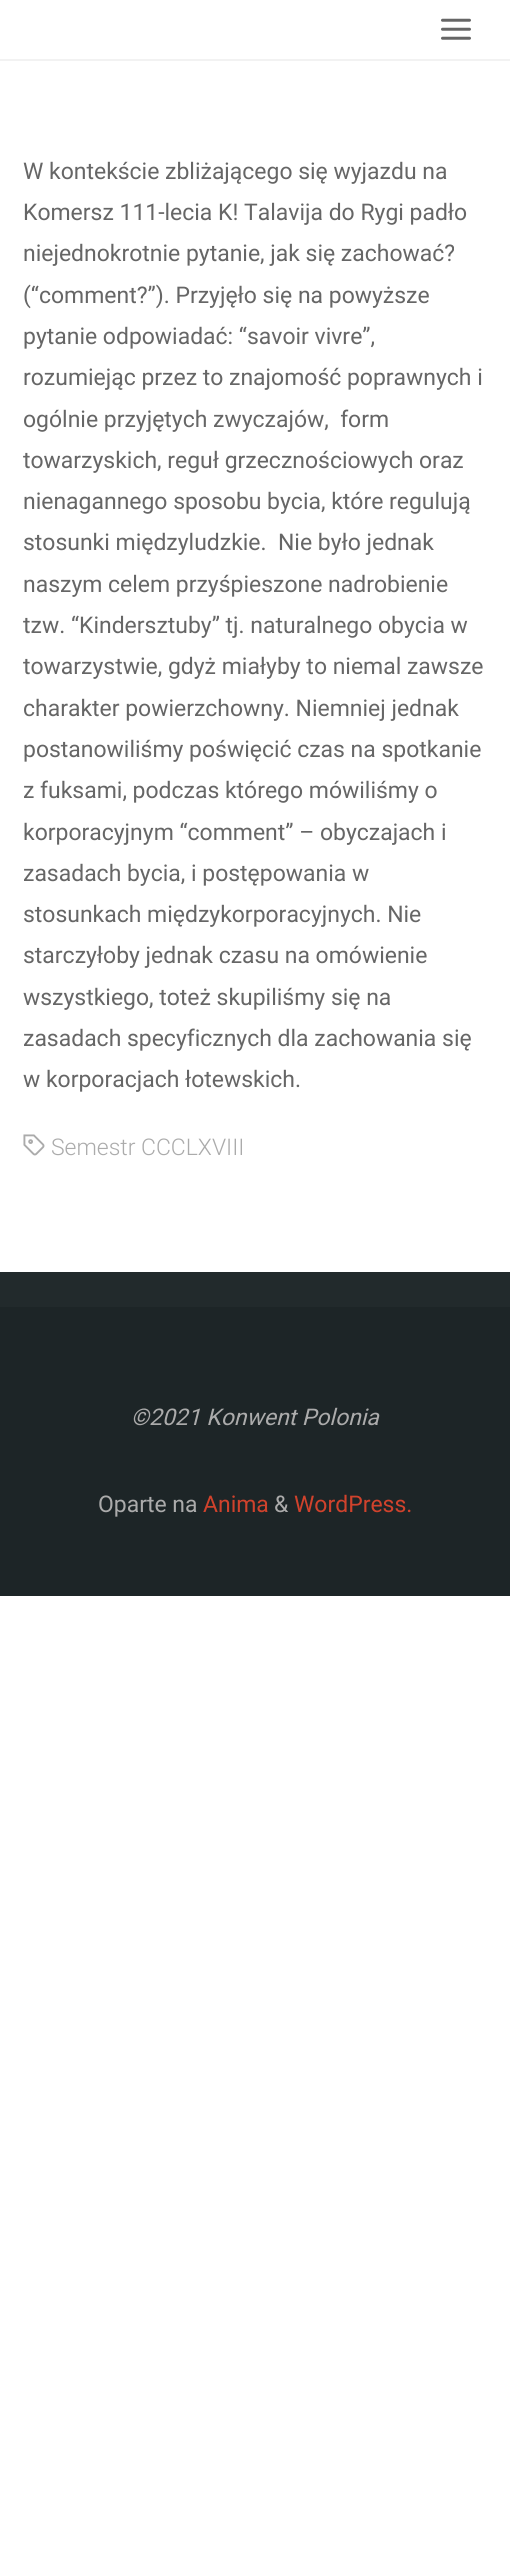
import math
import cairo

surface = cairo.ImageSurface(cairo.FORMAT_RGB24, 510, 2552)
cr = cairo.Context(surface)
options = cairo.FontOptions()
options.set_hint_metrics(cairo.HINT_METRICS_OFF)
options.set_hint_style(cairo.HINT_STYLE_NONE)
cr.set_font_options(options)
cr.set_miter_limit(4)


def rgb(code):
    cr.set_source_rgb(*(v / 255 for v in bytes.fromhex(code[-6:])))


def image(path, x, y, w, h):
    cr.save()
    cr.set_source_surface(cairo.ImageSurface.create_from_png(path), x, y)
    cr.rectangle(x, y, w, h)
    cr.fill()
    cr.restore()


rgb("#ffffff")
cr.paint()
rgb("#f2f2f2")
cr.rectangle(0, 59, 510, 2)
cr.fill()
image("img/1.png", 441, 18, 30, 22)
image("img/2.png", 23, 1134, 22, 22)
rgb("#222a2c")
cr.rectangle(0, 1272, 510, 35)
cr.fill()
rgb("#1d2527")
cr.rectangle(0, 1307, 510, 289)
cr.fill()
cr.select_font_face("Roboto")
cr.set_font_size(22.95)
rgb("#666666")
for x, y, s in [
    (23, 179, "W kontekście zbliżającego się wyjazdu na"),
    (23, 220, "Komersz 111-lecia K! Talavija do Rygi padło"),
    (23, 261, "niejednokrotnie pytanie, jak się zachować?"),
    (23, 303, "(“comment?”). Przyjęło się na powyższe"),
    (23, 344, "pytanie odpowiadać: “savoir vivre”,"),
    (23, 385, "rozumiejąc przez to znajomość poprawnych i"),
    (23, 427, "ogólnie przyjętych zwyczajów,  form"),
    (23, 468, "towarzyskich, reguł grzecznościowych oraz"),
    (23, 509, "nienagannego sposobu bycia, które regulują"),
    (23, 550, "stosunki międzyludzkie.  Nie było jednak"),
    (23, 592, "naszym celem przyśpieszone nadrobienie"),
    (23, 633, "tzw. “Kindersztuby” tj. naturalnego obycia w"),
    (23, 674, "towarzystwie, gdyż miałyby to niemal zawsze"),
    (23, 716, "charakter powierzchowny. Niemniej jednak"),
    (23, 757, "postanowiliśmy poświęcić czas na spotkanie"),
    (23, 798, "z fuksami, podczas którego mówiliśmy o"),
    (23, 840, "korporacyjnym “comment” – obyczajach i"),
    (23, 881, "zasadach bycia, i postępowania w"),
    (23, 922, "stosunkach międzykorporacyjnych. Nie"),
    (23, 963, "starczyłoby jednak czasu na omówienie"),
    (23, 1005, "wszystkiego, toteż skupiliśmy się na"),
    (23, 1046, "zasadach specyficznych dla zachowania się"),
    (23, 1087, "w korporacjach łotewskich."),
]:
    cr.move_to(x, y)
    cr.show_text(s)
cr.select_font_face("Roboto Light")
rgb("#ababab")
cr.move_to(51, 1155)
cr.show_text("Semestr CCCLXVIII")
cr.select_font_face("Roboto", cairo.FONT_SLANT_ITALIC)
cr.move_to(131, 1425)
cr.show_text("©2021 Konwent Polonia")
cr.select_font_face("Roboto")
cr.move_to(98, 1512)
cr.show_text("Oparte na")
rgb("#d0422c")
cr.move_to(203, 1512)
cr.show_text("Anima")
rgb("#ababab")
cr.move_to(274, 1512)
cr.show_text("&")
rgb("#d0422c")
cr.move_to(294, 1512)
cr.show_text("WordPress.")
surface.write_to_png("page.png")
